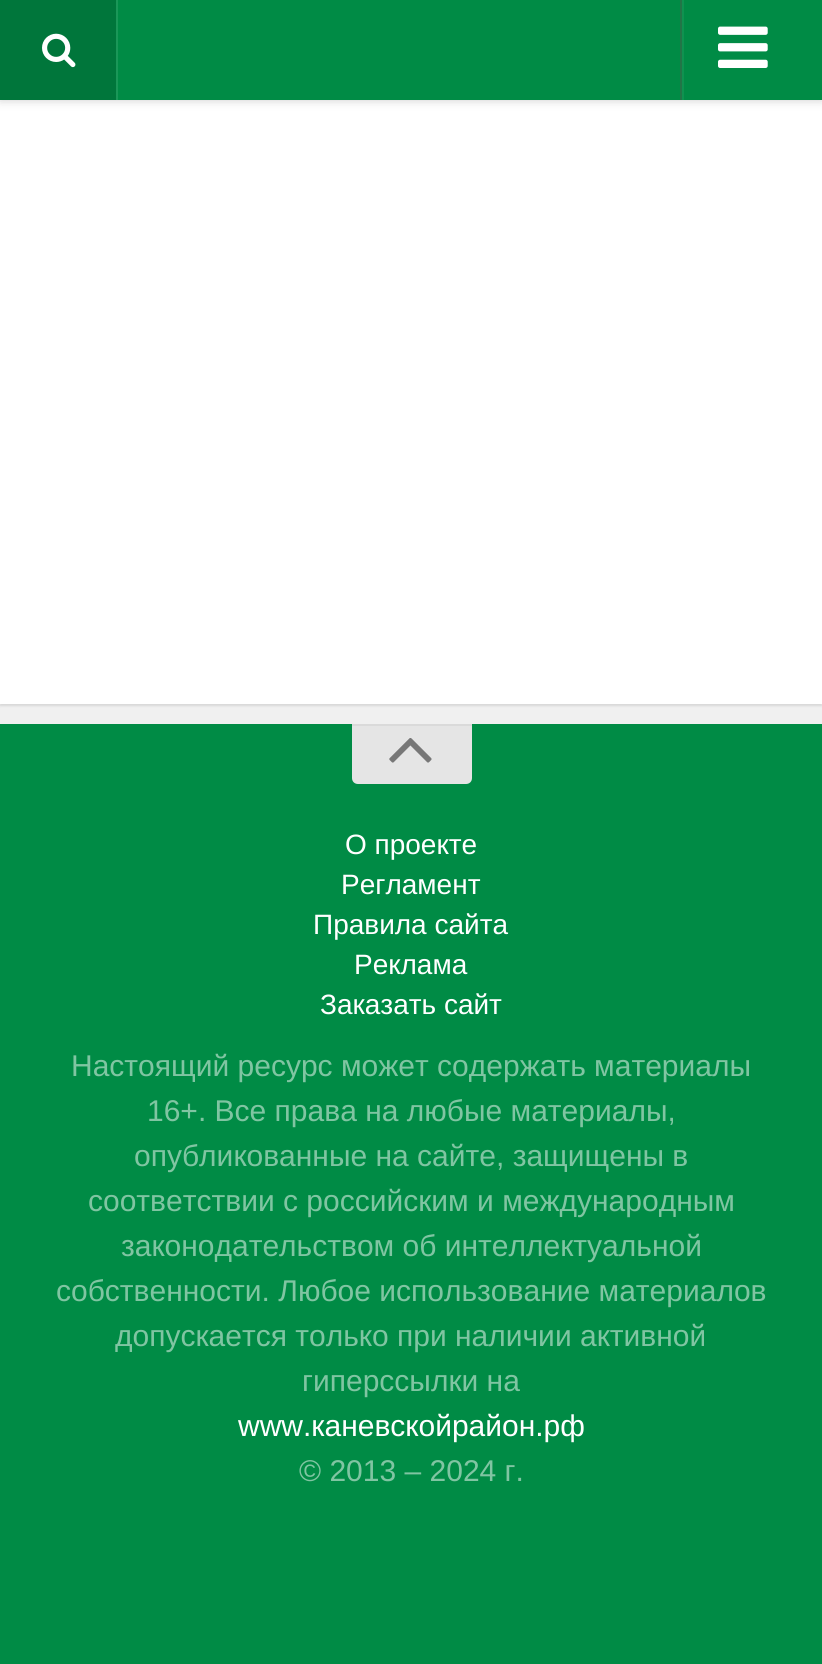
import math
import cairo

surface = cairo.ImageSurface(cairo.FORMAT_RGB24, 822, 1664)
cr = cairo.Context(surface)
options = cairo.FontOptions()
options.set_hint_metrics(cairo.HINT_METRICS_OFF)
options.set_hint_style(cairo.HINT_STYLE_NONE)
cr.set_font_options(options)
cr.set_miter_limit(4)


def rgb(code):
    cr.set_source_rgb(*(v / 255 for v in bytes.fromhex(code[-6:])))


def rrect(x, y, w, h, r):
    cr.new_sub_path()
    for i, (u, v) in enumerate([(x + w - r, y + h - r), (x + r, y + h - r), (x + r, y + r), (x + w - r, y + r)]):
        cr.arc(u, v, r, i * math.pi / 2, (i + 1) * math.pi / 2)
    cr.close_path()


def soft_shadow(x, y, w, h, r, blur, alpha):
    cr.push_group_with_content(cairo.CONTENT_ALPHA)
    cr.set_operator(cairo.OPERATOR_SOURCE)
    for i in range(15, -16, -2):
        e = blur * i / 6
        if min(w, h) + 2 * e > 0:
            cr.set_source_rgba(0, 0, 0, alpha * math.erfc((i - 1) / 8.5) / 2)
            rrect(x - e, y - e, w + 2 * e, h + 2 * e, max(0, min(r + e + blur * .6, min(w, h) / 2 + e)))
            cr.fill()
    cr.mask(cr.pop_group())


def image(path, x, y, w, h):
    cr.save()
    cr.set_source_surface(cairo.ImageSurface.create_from_png(path), x, y)
    cr.rectangle(x, y, w, h)
    cr.fill()
    cr.restore()


rgb("#f0f0f0")
cr.paint()
rgb("#000000")
soft_shadow(0, -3, 822, 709, 0, 1, 0.1)
rgb("#ffffff")
cr.rectangle(0, 100, 822, 604)
cr.fill()
rgb("#000000")
soft_shadow(0, 0, 822, 100, 0, 5, 0.2)
for x, y, w, h, color in [
    (118, 0, 704, 100, "#008b45"),
    (116, 0, 2, 100, "#1a9758"),
    (0, 0, 116, 100, "#00763b"),
]:
    rgb(color)
    cr.rectangle(x, y, w, h)
    cr.fill()
image("img/1.png", 42, 33, 34, 35)
rgb("#0f9250")
cr.rectangle(682, 0, 2, 100)
cr.fill()
rgb("#227547")
cr.rectangle(680, 0, 2, 100)
cr.fill()
image("img/2.png", 718, 26, 50, 42)
rgb("#008b45")
cr.rectangle(0, 724, 822, 940)
cr.fill()
rgb("#e5e5e5")
cr.new_path()
cr.move_to(352, 724)
cr.line_to(472, 724)
cr.line_to(472, 778)
cr.curve_to(472, 781.5, 469.5, 784, 466, 784)
cr.line_to(358, 784)
cr.curve_to(354.5, 784, 352, 781.5, 352, 778)
cr.close_path()
cr.fill()
rgb("#dadada")
cr.rectangle(352, 724, 120, 2)
cr.fill()
image("img/3.png", 389, 738, 43, 25)
cr.select_font_face("Liberation Sans")
cr.set_font_size(28)
rgb("#ffffff")
for x, y, s in [
    (345, 854, "О проекте"),
    (341, 894, "Регламент"),
    (313, 934, "Правила сайта"),
    (354, 974, "Реклама"),
    (320, 1014, "Заказать сайт"),
]:
    cr.move_to(x, y)
    cr.show_text(s)
cr.set_font_size(30)
rgb("#80c5a2")
for x, y, s in [
    (71, 1076, "Настоящий ресурс может содержать материалы"),
    (147, 1121, "16+. Все права на любые материалы,"),
    (134, 1166, "опубликованные на сайте, защищены в"),
    (88, 1211, "соответствии с российским и международным"),
    (121, 1256, "законодательством об интеллектуальной"),
    (56, 1301, "собственности. Любое использование материалов"),
    (115, 1346, "допускается только при наличии активной"),
    (302, 1391, "гиперссылки на"),
]:
    cr.move_to(x, y)
    cr.show_text(s)
rgb("#ffffff")
cr.move_to(238, 1436)
cr.show_text("www.каневскойрайон.рф")
rgb("#80c5a2")
cr.move_to(299, 1481)
cr.show_text("© 2013 – 2024 г.")
surface.write_to_png("page.png")
